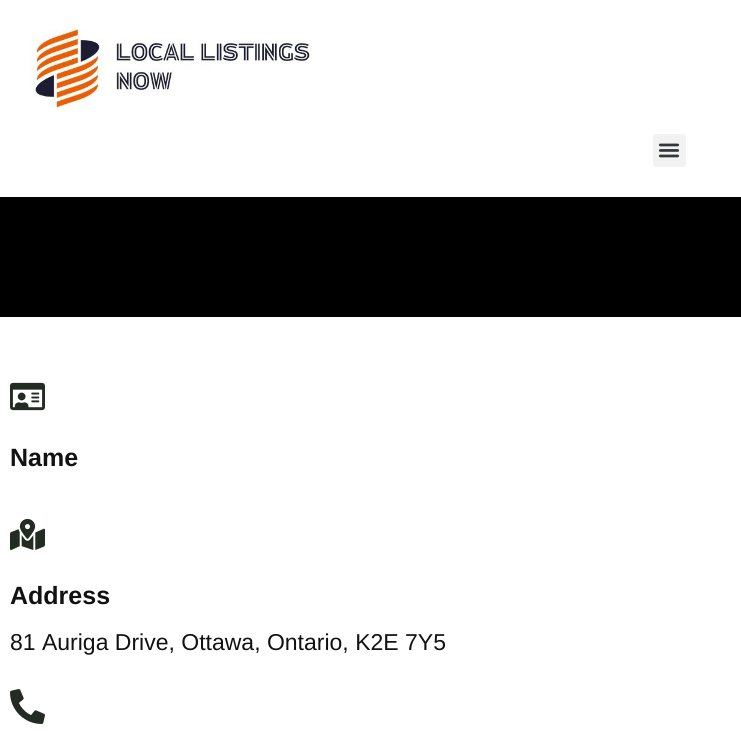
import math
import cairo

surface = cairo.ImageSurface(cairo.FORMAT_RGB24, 741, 731)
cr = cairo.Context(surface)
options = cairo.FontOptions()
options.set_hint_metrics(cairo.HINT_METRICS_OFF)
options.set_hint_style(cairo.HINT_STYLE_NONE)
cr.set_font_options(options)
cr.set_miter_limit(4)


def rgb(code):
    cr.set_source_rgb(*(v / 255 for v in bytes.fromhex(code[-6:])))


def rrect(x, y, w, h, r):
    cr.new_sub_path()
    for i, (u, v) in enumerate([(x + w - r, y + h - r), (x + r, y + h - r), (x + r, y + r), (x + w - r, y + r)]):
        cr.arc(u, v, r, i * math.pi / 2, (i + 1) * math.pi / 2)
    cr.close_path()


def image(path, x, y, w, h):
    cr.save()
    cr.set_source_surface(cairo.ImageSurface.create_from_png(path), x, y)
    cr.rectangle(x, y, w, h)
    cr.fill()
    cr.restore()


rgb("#ffffff")
cr.paint()
image("img/1.png", 29, 29, 283, 79)
rgb("#f2f2f2")
rrect(653, 134, 33, 33, 3)
cr.fill()
image("img/2.png", 658, 143, 22, 15)
rgb("#000000")
cr.rectangle(0, 197, 741, 120)
cr.fill()
image("img/3.png", 10, 382, 35, 29)
image("img/4.png", 10, 518, 35, 32)
image("img/5.png", 10, 689, 35, 35)
cr.select_font_face("Liberation Sans", cairo.FONT_SLANT_NORMAL, cairo.FONT_WEIGHT_BOLD)
cr.set_font_size(25)
rgb("#121213")
cr.move_to(10, 466)
cr.show_text("Name")
cr.move_to(10, 604)
cr.show_text("Address")
cr.select_font_face("Liberation Sans")
cr.set_font_size(23)
cr.move_to(10, 650)
cr.show_text("81 Auriga Drive, Ottawa, Ontario, K2E 7Y5")
surface.write_to_png("page.png")
